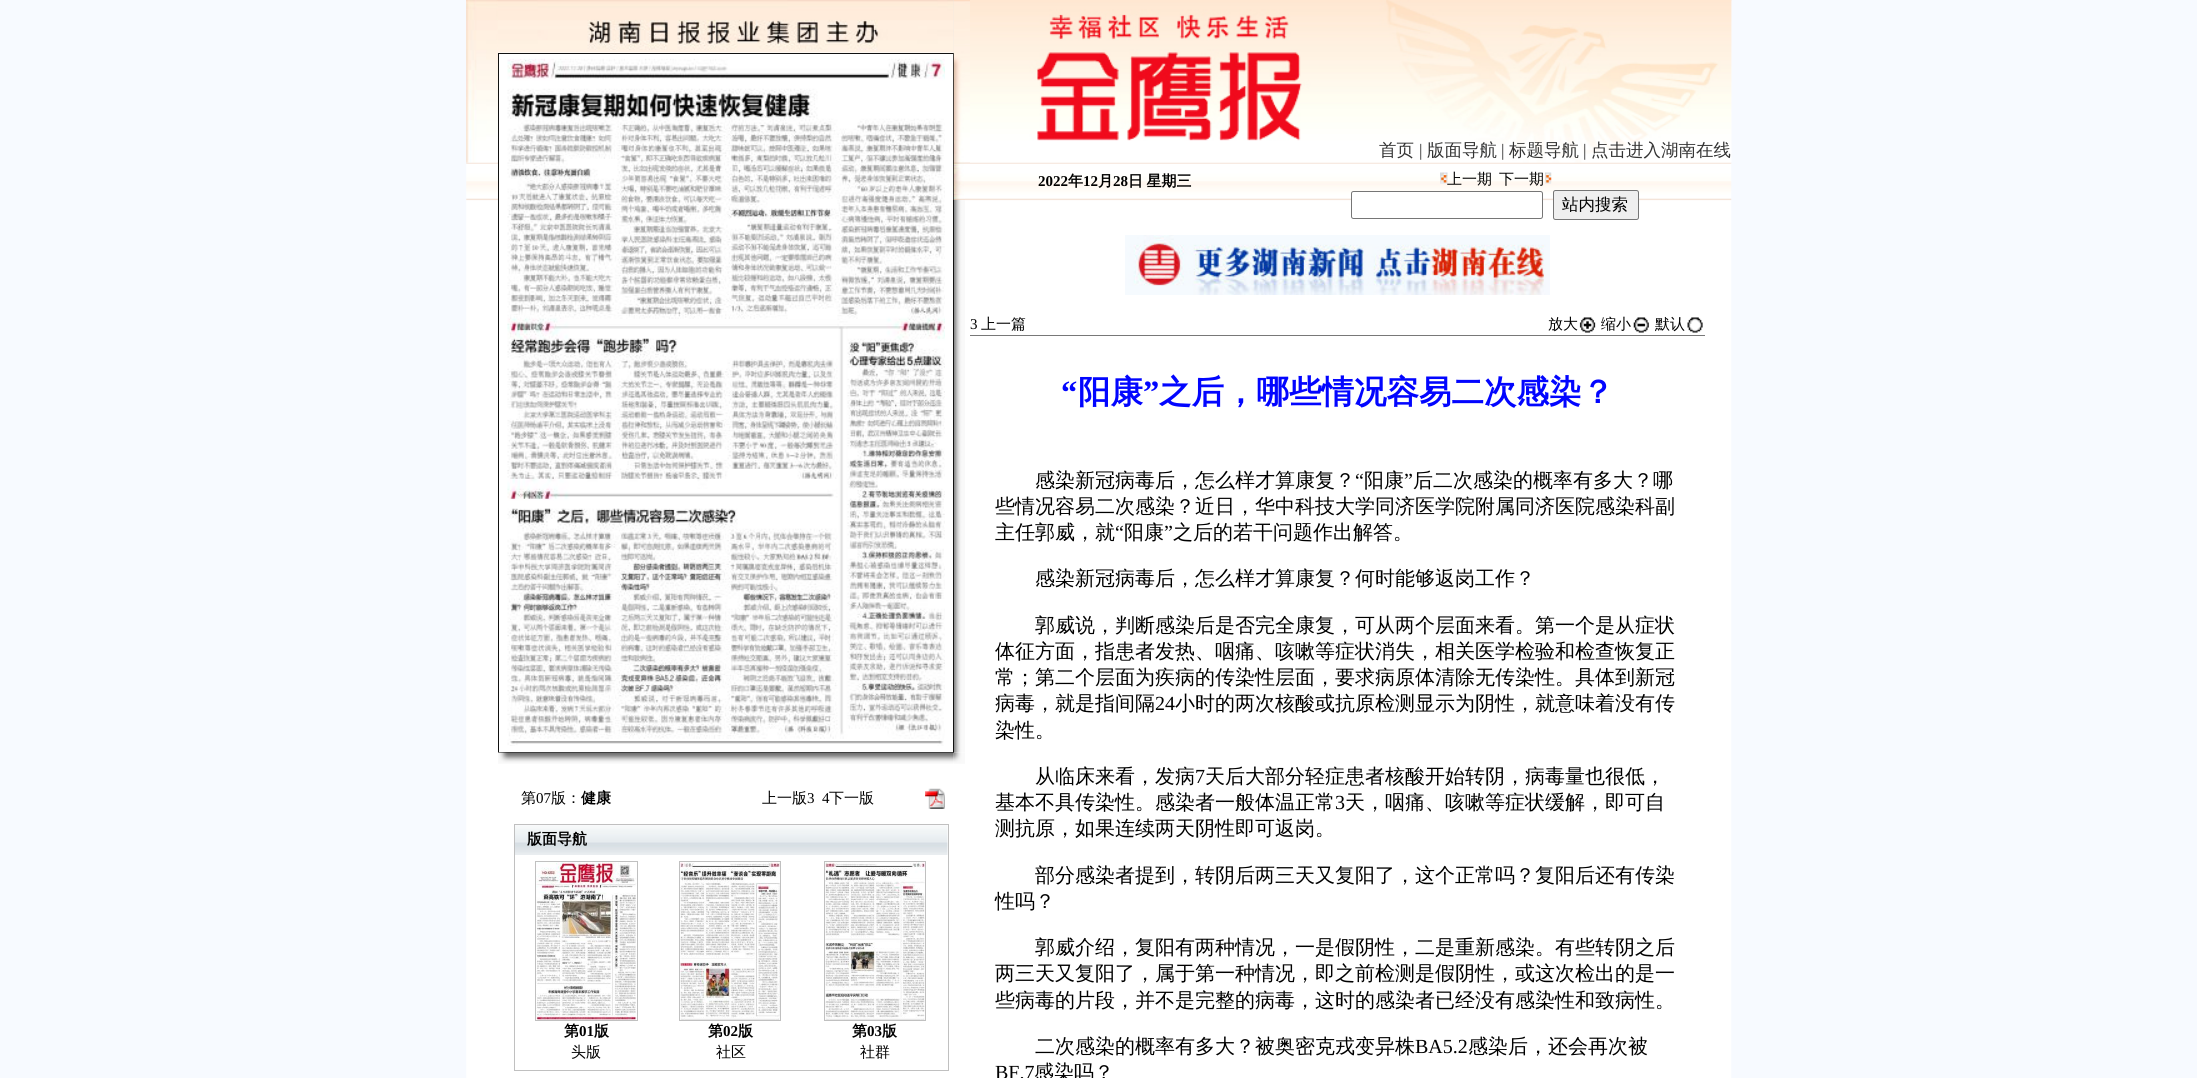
import math
import cairo

surface = cairo.ImageSurface(cairo.FORMAT_RGB24, 2197, 1078)
cr = cairo.Context(surface)
options = cairo.FontOptions()
options.set_hint_metrics(cairo.HINT_METRICS_OFF)
options.set_hint_style(cairo.HINT_STYLE_NONE)
cr.set_font_options(options)
cr.set_miter_limit(4)


def rgb(code):
    cr.set_source_rgb(*(v / 255 for v in bytes.fromhex(code[-6:])))


def tracked(x, y, s, letter, word):
    cr.move_to(x, y)
    for ch in s:
        cr.show_text(ch)
        cr.rel_move_to(letter + word * (ch == ' '), 0)


def rrect(x, y, w, h, r):
    cr.new_sub_path()
    for i, (u, v) in enumerate([(x + w - r, y + h - r), (x + r, y + h - r), (x + r, y + r), (x + w - r, y + r)]):
        cr.arc(u, v, r, i * math.pi / 2, (i + 1) * math.pi / 2)
    cr.close_path()


def image(path, x, y, w, h):
    cr.save()
    cr.set_source_surface(cairo.ImageSurface.create_from_png(path), x, y)
    cr.rectangle(x, y, w, h)
    cr.fill()
    cr.restore()


rgb("#f7faff")
cr.paint()
image("img/1.png", 466, 0, 1266, 1078)
image("img/2.png", 466, 0, 32, 163)
rgb("#ffffff")
cr.rectangle(498, 0, 456, 53)
cr.fill()
image("img/4.png", 953, 0, 12, 753)
image("img/3.png", 498, 0, 456, 53)
cr.rectangle(499, 54, 454, 147)
cr.fill()
cr.rectangle(498.5, 53.5, 455, 699)
rgb("#111111")
cr.set_line_width(1)
cr.stroke()
image("img/5.png", 953, 0, 12, 200)
image("img/6.png", 507, 58, 438, 688)
image("img/7.png", 498, 752, 456, 12)
image("img/8.png", 953, 752, 12, 12)
image("img/9.png", 925, 788, 20, 21)
cr.rectangle(514.5, 824.5, 434, 246)
rgb("#c0c0c0")
cr.stroke()
image("img/10.png", 515, 825, 433, 30)
cr.rectangle(535.5, 861.5, 102, 159)
cr.stroke()
image("img/11.png", 536, 862, 101, 158)
cr.rectangle(679.5, 861.5, 101, 159)
cr.stroke()
image("img/12.png", 680, 862, 100, 158)
cr.rectangle(824.5, 861.5, 101, 159)
cr.stroke()
image("img/13.png", 825, 862, 100, 158)
image("img/14.png", 970, 0, 762, 163)
image("img/15.png", 1440, 172, 8, 12)
image("img/16.png", 1545, 172, 7, 12)
rgb("#ffffff")
rrect(1351.5, 191.5, 191, 27, 2)
cr.fill_preserve()
rgb("#767676")
cr.stroke()
rgb("#efefef")
rrect(1553.5, 190.5, 85, 29, 2)
cr.fill_preserve()
rgb("#767676")
cr.stroke()
rgb("#787878")
cr.rectangle(970, 335, 735, 1)
cr.fill()
image("img/17.png", 1125, 235, 425, 60)
image("img/18.png", 1579, 317, 17, 16)
image("img/19.png", 1633, 317, 16, 16)
image("img/20.png", 1687, 317, 16, 16)
cr.select_font_face("WenQuanYi Zen Hei Medium")
cr.set_font_size(15)
rgb("#000000")
cr.move_to(521, 803)
cr.show_text("第")
cr.select_font_face("Liberation Serif")
cr.move_to(536, 803)
cr.show_text("07")
cr.select_font_face("WenQuanYi Zen Hei Medium")
cr.move_to(551, 803)
cr.show_text("版：")
cr.select_font_face("WenQuanYi Zen Hei", cairo.FONT_SLANT_NORMAL, cairo.FONT_WEIGHT_BOLD)
cr.move_to(581, 803)
cr.show_text("健康")
cr.select_font_face("WenQuanYi Zen Hei Medium")
cr.move_to(762, 803)
cr.show_text("上一版")
cr.select_font_face("Liberation Serif")
cr.move_to(807, 803)
cr.show_text("3")
cr.move_to(822, 803)
cr.show_text("4")
cr.select_font_face("WenQuanYi Zen Hei Medium")
cr.move_to(829, 803)
cr.show_text("下一版")
cr.select_font_face("WenQuanYi Zen Hei", cairo.FONT_SLANT_NORMAL, cairo.FONT_WEIGHT_BOLD)
cr.move_to(527, 844)
cr.show_text("版面导航")
cr.move_to(564, 1036)
cr.show_text("第")
cr.select_font_face("Liberation Serif", cairo.FONT_SLANT_NORMAL, cairo.FONT_WEIGHT_BOLD)
cr.move_to(579, 1036)
cr.show_text("01")
cr.select_font_face("WenQuanYi Zen Hei", cairo.FONT_SLANT_NORMAL, cairo.FONT_WEIGHT_BOLD)
cr.move_to(594, 1036)
cr.show_text("版")
cr.select_font_face("WenQuanYi Zen Hei Medium")
cr.move_to(571, 1057)
cr.show_text("头版")
cr.select_font_face("WenQuanYi Zen Hei", cairo.FONT_SLANT_NORMAL, cairo.FONT_WEIGHT_BOLD)
cr.move_to(708, 1036)
cr.show_text("第")
cr.select_font_face("Liberation Serif", cairo.FONT_SLANT_NORMAL, cairo.FONT_WEIGHT_BOLD)
cr.move_to(723, 1036)
cr.show_text("02")
cr.select_font_face("WenQuanYi Zen Hei", cairo.FONT_SLANT_NORMAL, cairo.FONT_WEIGHT_BOLD)
cr.move_to(738, 1036)
cr.show_text("版")
cr.select_font_face("WenQuanYi Zen Hei Medium")
cr.move_to(716, 1057)
cr.show_text("社区")
cr.select_font_face("WenQuanYi Zen Hei", cairo.FONT_SLANT_NORMAL, cairo.FONT_WEIGHT_BOLD)
cr.move_to(852, 1036)
cr.show_text("第")
cr.select_font_face("Liberation Serif", cairo.FONT_SLANT_NORMAL, cairo.FONT_WEIGHT_BOLD)
cr.move_to(867, 1036)
cr.show_text("03")
cr.select_font_face("WenQuanYi Zen Hei", cairo.FONT_SLANT_NORMAL, cairo.FONT_WEIGHT_BOLD)
cr.move_to(882, 1036)
cr.show_text("版")
cr.select_font_face("WenQuanYi Zen Hei Medium")
cr.move_to(860, 1057)
cr.show_text("社群")
cr.set_font_size(17.5)
rgb("#333333")
cr.move_to(1379, 156)
cr.show_text("首页")
cr.select_font_face("Liberation Serif")
cr.move_to(1419, 156)
cr.show_text("|")
cr.select_font_face("WenQuanYi Zen Hei Medium")
cr.move_to(1427, 156)
cr.show_text("版面导航")
cr.select_font_face("Liberation Serif")
cr.move_to(1501, 156)
cr.show_text("|")
cr.select_font_face("WenQuanYi Zen Hei Medium")
cr.move_to(1509, 156)
cr.show_text("标题导航")
cr.select_font_face("Liberation Serif")
cr.move_to(1583, 156)
cr.show_text("|")
cr.select_font_face("WenQuanYi Zen Hei Medium")
cr.move_to(1591, 156)
cr.show_text("点击进入湖南在线")
cr.select_font_face("Liberation Serif", cairo.FONT_SLANT_NORMAL, cairo.FONT_WEIGHT_BOLD)
cr.set_font_size(15)
rgb("#000000")
cr.move_to(1038, 186)
cr.show_text("2022")
cr.select_font_face("WenQuanYi Zen Hei", cairo.FONT_SLANT_NORMAL, cairo.FONT_WEIGHT_BOLD)
cr.move_to(1068, 186)
cr.show_text("年")
cr.select_font_face("Liberation Serif", cairo.FONT_SLANT_NORMAL, cairo.FONT_WEIGHT_BOLD)
cr.move_to(1083, 186)
cr.show_text("12")
cr.select_font_face("WenQuanYi Zen Hei", cairo.FONT_SLANT_NORMAL, cairo.FONT_WEIGHT_BOLD)
cr.move_to(1098, 186)
cr.show_text("月")
cr.select_font_face("Liberation Serif", cairo.FONT_SLANT_NORMAL, cairo.FONT_WEIGHT_BOLD)
cr.move_to(1113, 186)
cr.show_text("28")
cr.select_font_face("WenQuanYi Zen Hei", cairo.FONT_SLANT_NORMAL, cairo.FONT_WEIGHT_BOLD)
tracked(1128, 186, "日 星期三", 0, -1)
cr.select_font_face("WenQuanYi Zen Hei Medium")
cr.move_to(1447, 184)
cr.show_text("上一期")
cr.move_to(1499, 184)
cr.show_text("下一期")
cr.set_font_size(16.5)
cr.move_to(1562, 210)
cr.show_text("站内搜索")
cr.select_font_face("Liberation Serif")
cr.set_font_size(15)
cr.move_to(970, 329)
cr.show_text("3")
cr.select_font_face("WenQuanYi Zen Hei Medium")
for x, y, s in [
    (981, 329, "上一篇"),
    (1548, 329, "放大"),
    (1601, 329, "缩小"),
    (1655, 329, "默认"),
]:
    cr.move_to(x, y)
    cr.show_text(s)
cr.select_font_face("Liberation Serif", cairo.FONT_SLANT_NORMAL, cairo.FONT_WEIGHT_BOLD)
cr.set_font_size(32.5)
rgb("#0205ff")
cr.move_to(1061, 403)
cr.show_text("“")
cr.select_font_face("WenQuanYi Zen Hei", cairo.FONT_SLANT_NORMAL, cairo.FONT_WEIGHT_BOLD)
cr.move_to(1078, 403)
cr.show_text("阳康")
cr.select_font_face("Liberation Serif", cairo.FONT_SLANT_NORMAL, cairo.FONT_WEIGHT_BOLD)
cr.move_to(1143, 403)
cr.show_text("”")
cr.select_font_face("WenQuanYi Zen Hei", cairo.FONT_SLANT_NORMAL, cairo.FONT_WEIGHT_BOLD)
cr.move_to(1159, 403)
cr.show_text("之后，哪些情况容易二次感染？")
cr.select_font_face("WenQuanYi Zen Hei Medium")
cr.set_font_size(20)
rgb("#000000")
cr.move_to(1035, 487)
cr.show_text("感染新冠病毒后，怎么样才算康复？")
cr.select_font_face("Liberation Serif")
cr.move_to(1355, 487)
cr.show_text("“")
cr.select_font_face("WenQuanYi Zen Hei Medium")
cr.move_to(1364, 487)
cr.show_text("阳康")
cr.select_font_face("Liberation Serif")
cr.move_to(1404, 487)
cr.show_text("”")
cr.select_font_face("WenQuanYi Zen Hei Medium")
for x, y, s in [
    (1413, 487, "后二次感染的概率有多大？哪"),
    (995, 513, "些情况容易二次感染？近日，华中科技大学同济医学院附属同济医院感染科副"),
    (995, 539, "主任郭威，就"),
]:
    cr.move_to(x, y)
    cr.show_text(s)
cr.select_font_face("Liberation Serif")
cr.move_to(1115, 539)
cr.show_text("“")
cr.select_font_face("WenQuanYi Zen Hei Medium")
cr.move_to(1124, 539)
cr.show_text("阳康")
cr.select_font_face("Liberation Serif")
cr.move_to(1164, 539)
cr.show_text("”")
cr.select_font_face("WenQuanYi Zen Hei Medium")
for x, y, s in [
    (1173, 539, "之后的若干问题作出解答。"),
    (1035, 585, "感染新冠病毒后，怎么样才算康复？何时能够返岗工作？"),
    (1035, 632, "郭威说，判断感染后是否完全康复，可从两个层面来看。第一个是从症状"),
    (995, 658, "体征方面，指患者发热、咽痛、咳嗽等症状消失，相关医学检验和检查恢复正"),
    (995, 684, "常；第二个层面为疾病的传染性层面，要求病原体清除无传染性。具体到新冠"),
    (995, 710, "病毒，就是指间隔"),
]:
    cr.move_to(x, y)
    cr.show_text(s)
cr.select_font_face("Liberation Serif")
cr.move_to(1155, 710)
cr.show_text("24")
cr.select_font_face("WenQuanYi Zen Hei Medium")
for x, y, s in [
    (1175, 710, "小时的两次核酸或抗原检测显示为阴性，就意味着没有传"),
    (995, 737, "染性。"),
    (1035, 783, "从临床来看，发病"),
]:
    cr.move_to(x, y)
    cr.show_text(s)
cr.select_font_face("Liberation Serif")
cr.move_to(1195, 783)
cr.show_text("7")
cr.select_font_face("WenQuanYi Zen Hei Medium")
cr.move_to(1205, 783)
cr.show_text("天后大部分轻症患者核酸开始转阴，病毒量也很低，")
cr.move_to(995, 809)
cr.show_text("基本不具传染性。感染者一般体温正常")
cr.select_font_face("Liberation Serif")
cr.move_to(1335, 809)
cr.show_text("3")
cr.select_font_face("WenQuanYi Zen Hei Medium")
for x, y, s in [
    (1345, 809, "天，咽痛、咳嗽等症状缓解，即可自"),
    (995, 835, "测抗原，如果连续两天阴性即可返岗。"),
    (1035, 882, "部分感染者提到，转阴后两三天又复阳了，这个正常吗？复阳后还有传染"),
    (995, 908, "性吗？"),
    (1035, 954, "郭威介绍，复阳有两种情况，一是假阴性，二是重新感染。有些转阴之后"),
    (995, 980, "两三天又复阳了，属于第一种情况，即之前检测是假阴性，或这次检出的是一"),
    (995, 1007, "些病毒的片段，并不是完整的病毒，这时的感染者已经没有感染性和致病性。"),
    (1035, 1053, "二次感染的概率有多大？被奥密克戎变异株"),
]:
    cr.move_to(x, y)
    cr.show_text(s)
cr.select_font_face("Liberation Serif")
cr.move_to(1415, 1053)
cr.show_text("BA5.2")
cr.select_font_face("WenQuanYi Zen Hei Medium")
cr.move_to(1468, 1053)
cr.show_text("感染后，还会再次被")
cr.select_font_face("Liberation Serif")
cr.move_to(995, 1079)
cr.show_text("BF.7")
cr.select_font_face("WenQuanYi Zen Hei Medium")
cr.move_to(1034, 1079)
cr.show_text("感染吗？")
surface.write_to_png("page.png")
